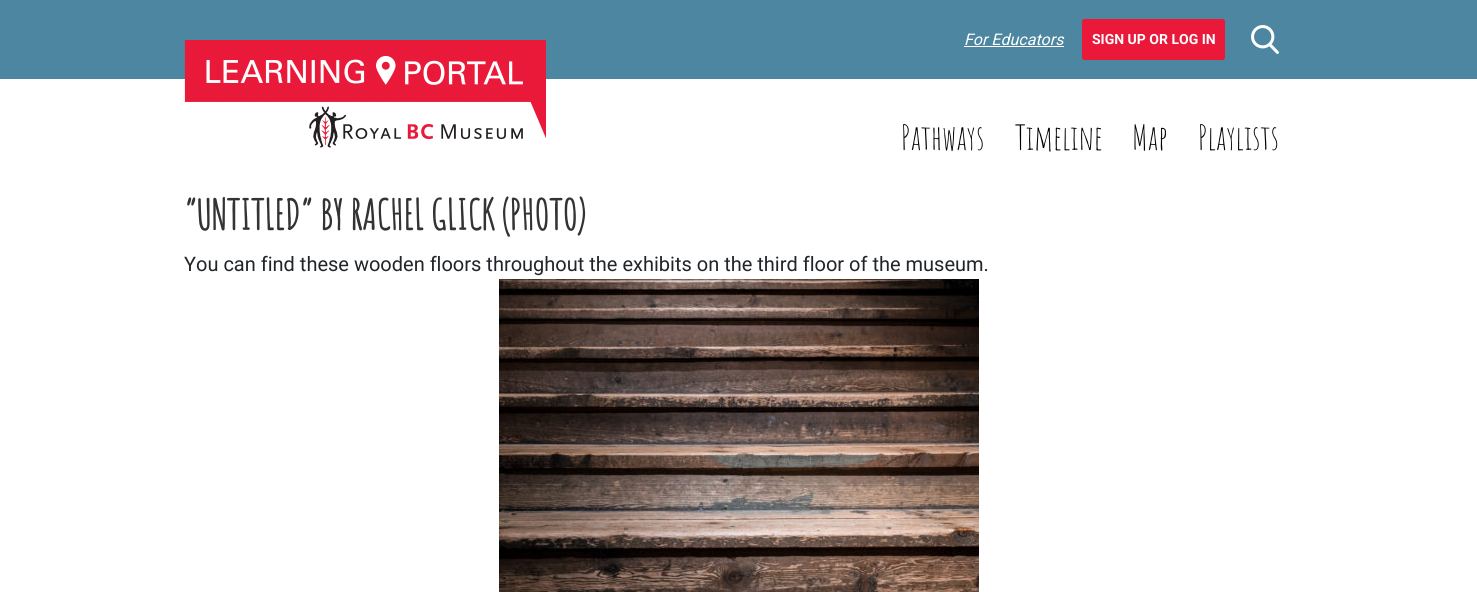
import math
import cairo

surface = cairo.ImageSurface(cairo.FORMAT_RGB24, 1477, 592)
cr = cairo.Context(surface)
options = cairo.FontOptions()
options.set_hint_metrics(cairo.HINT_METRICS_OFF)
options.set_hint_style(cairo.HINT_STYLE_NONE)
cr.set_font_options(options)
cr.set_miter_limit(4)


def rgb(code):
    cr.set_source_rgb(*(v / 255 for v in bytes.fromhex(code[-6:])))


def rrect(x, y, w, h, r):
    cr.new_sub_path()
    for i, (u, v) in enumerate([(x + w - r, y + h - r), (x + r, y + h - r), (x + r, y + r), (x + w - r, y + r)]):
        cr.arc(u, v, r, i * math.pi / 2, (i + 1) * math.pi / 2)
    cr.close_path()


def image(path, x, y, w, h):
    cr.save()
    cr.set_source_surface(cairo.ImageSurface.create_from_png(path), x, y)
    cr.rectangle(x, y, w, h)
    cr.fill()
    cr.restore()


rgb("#ffffff")
cr.paint()
rgb("#4d86a0")
cr.rectangle(0, 0, 1477, 79)
cr.fill()
image("img/1.png", 184, 40, 362, 108)
rgb("#ffffff")
cr.rectangle(964, 46, 100, 1)
cr.fill()
rgb("#ea193a")
rrect(1082, 19, 143, 41, 2.5)
cr.fill()
image("img/2.png", 1251, 25, 28, 29)
image("img/3.png", 499, 279, 480, 313)
cr.select_font_face("Roboto", cairo.FONT_SLANT_ITALIC)
cr.set_font_size(16)
rgb("#ffffff")
cr.move_to(964, 45)
cr.show_text("For Educators")
cr.select_font_face("Roboto", cairo.FONT_SLANT_NORMAL, cairo.FONT_WEIGHT_BOLD)
cr.set_font_size(14)
cr.move_to(1092, 44)
cr.show_text("SIGN UP OR LOG IN")
cr.select_font_face("Amatic SC")
cr.set_font_size(34)
rgb("#000000")
for x, y, s in [
    (901, 150, "Pathways"),
    (1015, 150, "Timeline"),
    (1132, 150, "Map"),
    (1198, 150, "Playlists"),
]:
    cr.move_to(x, y)
    cr.show_text(s)
cr.select_font_face("Amatic SC", cairo.FONT_SLANT_NORMAL, cairo.FONT_WEIGHT_BOLD)
cr.set_font_size(41)
rgb("#333333")
cr.move_to(184, 230)
cr.show_text("“UNTITLED” BY RACHEL GLICK (PHOTO)")
cr.select_font_face("Roboto")
cr.set_font_size(20)
rgb("#212529")
cr.move_to(184, 271)
cr.show_text("You can find these wooden floors throughout the exhibits on the third floor of the museum.")
surface.write_to_png("page.png")
